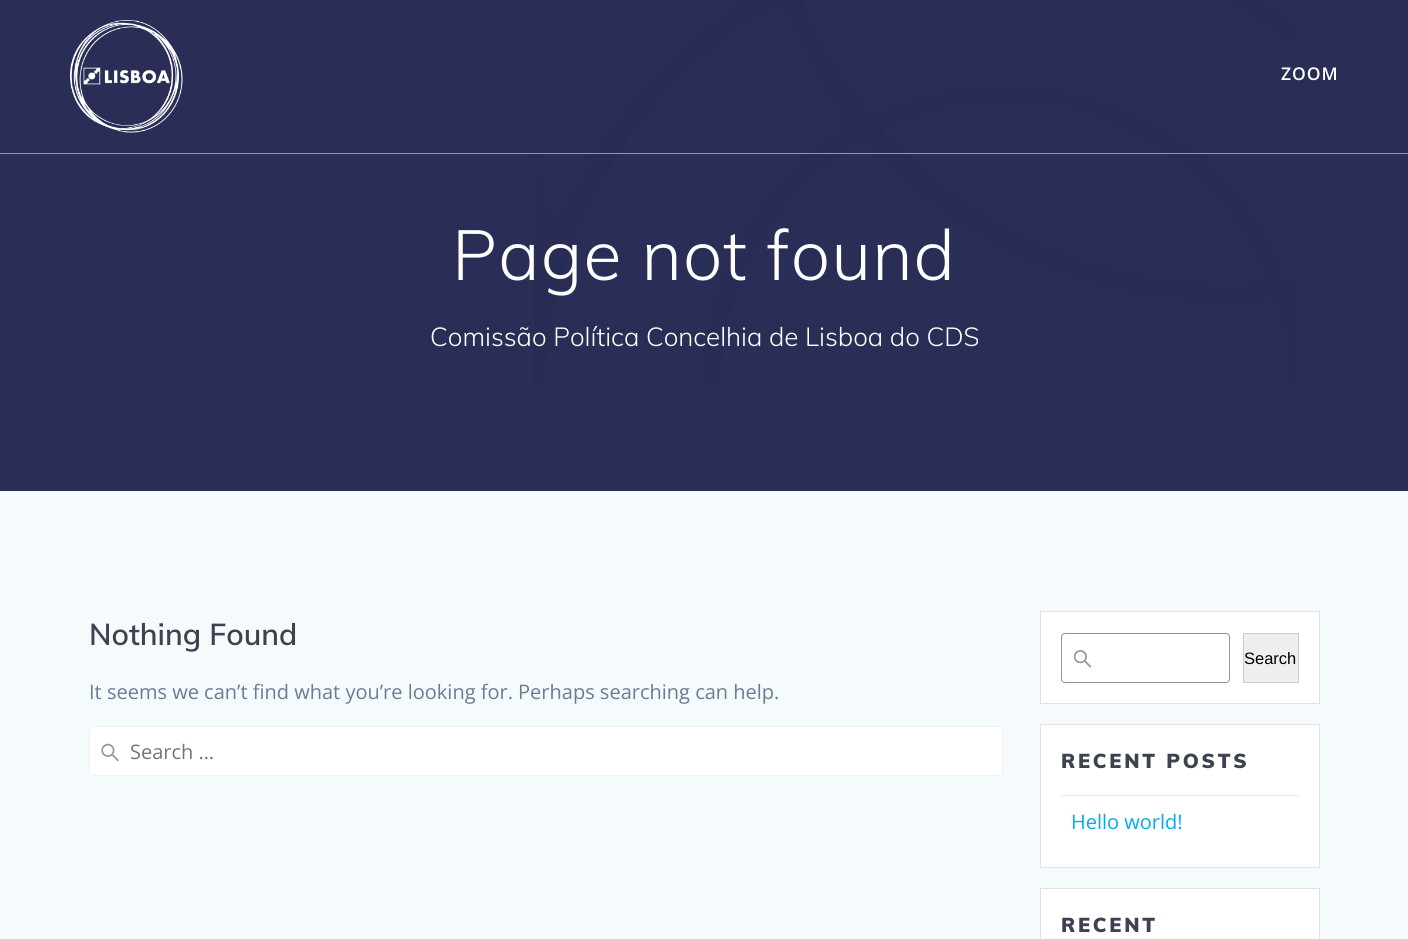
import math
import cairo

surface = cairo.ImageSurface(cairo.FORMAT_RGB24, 1408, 939)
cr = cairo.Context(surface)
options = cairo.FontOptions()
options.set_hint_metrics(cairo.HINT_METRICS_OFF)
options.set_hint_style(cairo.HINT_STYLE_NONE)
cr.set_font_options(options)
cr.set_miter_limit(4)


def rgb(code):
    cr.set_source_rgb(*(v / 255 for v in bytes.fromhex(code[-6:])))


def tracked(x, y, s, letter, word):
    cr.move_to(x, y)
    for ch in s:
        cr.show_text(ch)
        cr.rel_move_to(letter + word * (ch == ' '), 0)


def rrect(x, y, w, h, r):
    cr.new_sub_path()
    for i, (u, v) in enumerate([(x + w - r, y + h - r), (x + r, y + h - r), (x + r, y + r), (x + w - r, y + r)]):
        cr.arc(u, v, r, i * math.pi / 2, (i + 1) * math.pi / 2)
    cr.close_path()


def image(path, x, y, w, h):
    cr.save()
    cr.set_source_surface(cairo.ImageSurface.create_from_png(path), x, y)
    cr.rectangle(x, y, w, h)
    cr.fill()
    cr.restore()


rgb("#2a2e57")
cr.paint()
image("img/2.png", 534, 0, 760, 384)
cr.set_source_rgba(1, 1, 1, 0.5)
cr.rectangle(0, 153, 1408, 1)
cr.fill()
image("img/1.png", 70, 20, 113, 113)
rgb("#f5fafd")
cr.rectangle(0, 491, 1408, 448)
cr.fill()
rgb("#ffffff")
rrect(89, 726, 914, 50, 4)
cr.fill()
image("img/3.png", 101, 743, 18, 19)
rrect(89.5, 726.5, 913, 49, 3.5)
rgb("#f1f1f1")
cr.set_line_width(1)
cr.stroke()
rgb("#ffffff")
cr.rectangle(1040.5, 611.5, 279, 92)
cr.fill_preserve()
rgb("#e0e1e1")
cr.stroke()
image("img/4.png", 1073, 650, 19, 18)
rrect(1061.5, 633.5, 168, 49, 3.5)
rgb("#949494")
cr.stroke()
rgb("#efefef")
cr.rectangle(1243.5, 633.5, 55, 49)
cr.fill_preserve()
rgb("#cccccc")
cr.stroke()
rgb("#ffffff")
cr.rectangle(1040.5, 724.5, 279, 143)
cr.fill_preserve()
rgb("#e0e1e1")
cr.stroke()
rgb("#e6e6e6")
cr.rectangle(1061, 795, 238, 1)
cr.fill()
rgb("#ffffff")
cr.rectangle(1040.5, 888.5, 279, 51)
cr.fill_preserve()
rgb("#e0e1e1")
cr.stroke()
cr.select_font_face("Open Sans SemiBold")
cr.set_font_size(17.5)
rgb("#ffffff")
tracked(1281, 80, "ZOOM", 1, 0)
cr.select_font_face("Muli Light")
cr.set_font_size(70)
tracked(452, 280, "Page not found", 1.1, 0)
cr.set_font_size(26)
cr.move_to(430, 346)
cr.show_text("Comissão Política Concelhia de Lisboa do CDS")
cr.select_font_face("Muli SemiBold")
cr.set_font_size(30)
rgb("#3c424f")
cr.move_to(89, 645)
cr.show_text("Nothing Found")
cr.select_font_face("Open Sans")
cr.set_font_size(20)
rgb("#6b7c93")
cr.move_to(89, 699)
cr.show_text("It seems we can’t find what you’re looking for. Perhaps searching can help.")
rgb("#757575")
cr.move_to(130, 759)
cr.show_text("Search …")
cr.select_font_face("Liberation Sans")
cr.set_font_size(16.5)
rgb("#000000")
cr.move_to(1244, 664)
cr.show_text("Search")
cr.select_font_face("Muli Black")
cr.set_font_size(20)
rgb("#3c424f")
tracked(1061, 768, "RECENT POSTS", 2.75, 0)
cr.select_font_face("Open Sans")
rgb("#03a9f4")
cr.move_to(1071, 829)
cr.show_text("Hello world!")
cr.select_font_face("Muli Black")
rgb("#3c424f")
tracked(1061, 932, "RECENT", 2.75, 0)
surface.write_to_png("page.png")
